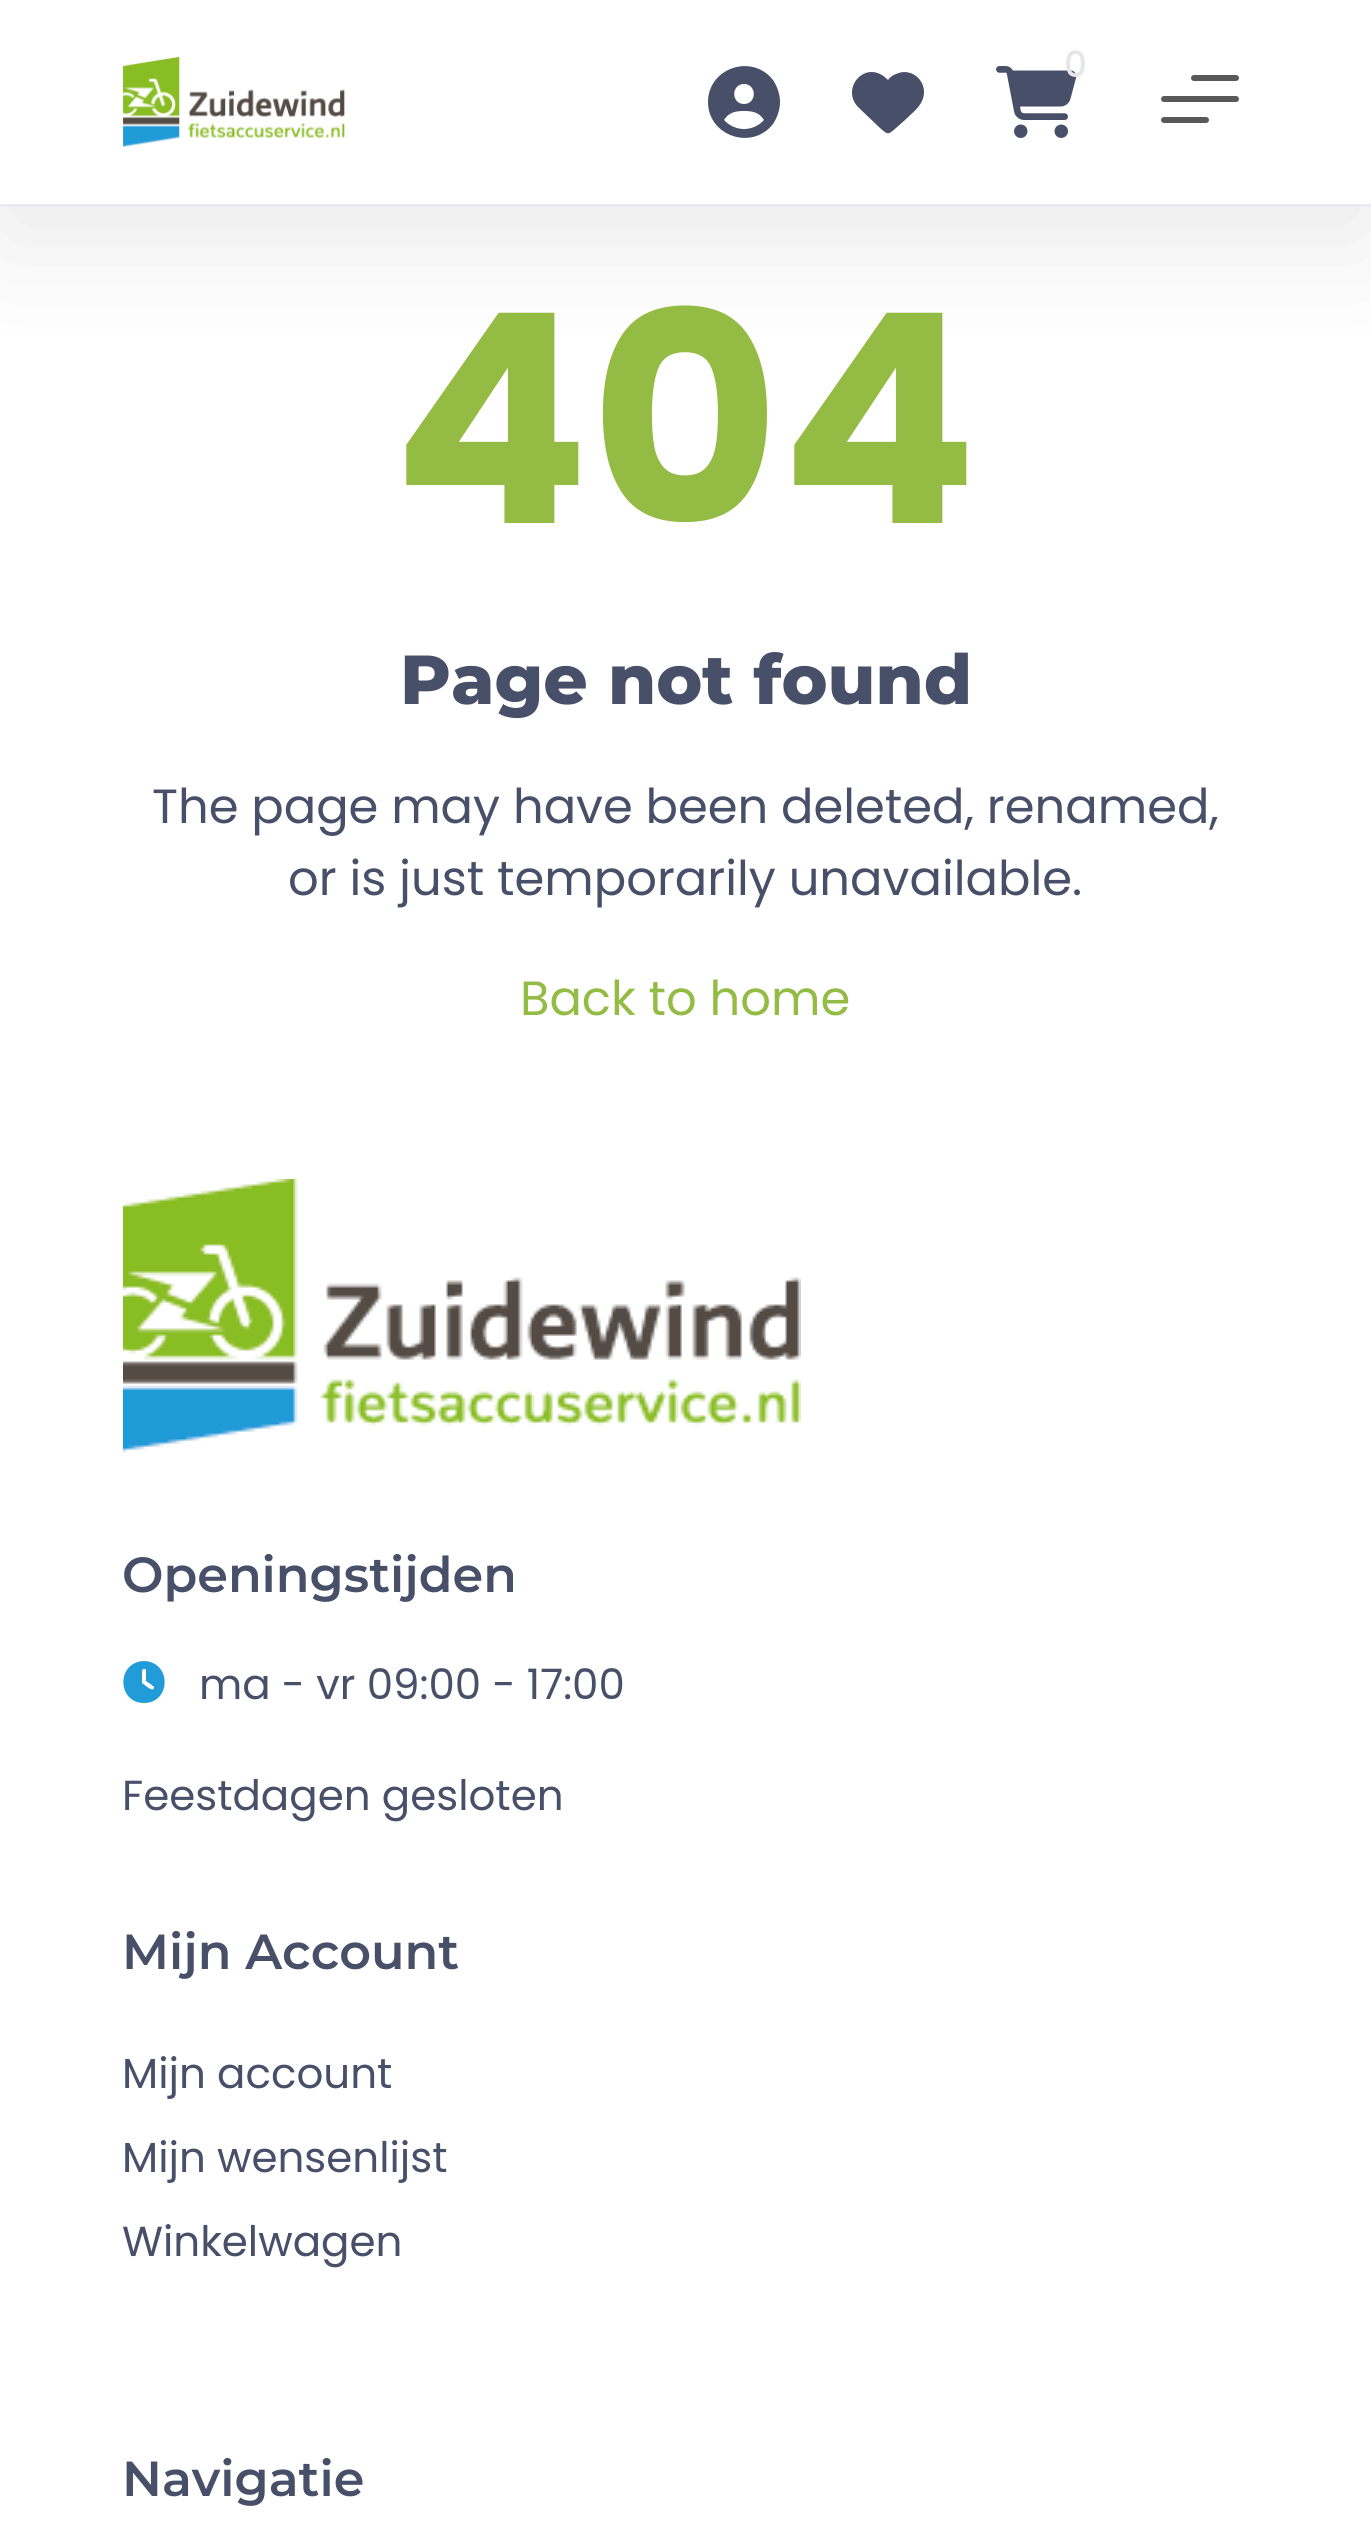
import math
import cairo

surface = cairo.ImageSurface(cairo.FORMAT_RGB24, 1371, 2535)
cr = cairo.Context(surface)
options = cairo.FontOptions()
options.set_hint_metrics(cairo.HINT_METRICS_OFF)
options.set_hint_style(cairo.HINT_STYLE_NONE)
cr.set_font_options(options)
cr.set_miter_limit(4)


def rgb(code):
    cr.set_source_rgb(*(v / 255 for v in bytes.fromhex(code[-6:])))


def rrect(x, y, w, h, r):
    cr.new_sub_path()
    for i, (u, v) in enumerate([(x + w - r, y + h - r), (x + r, y + h - r), (x + r, y + r), (x + w - r, y + r)]):
        cr.arc(u, v, r, i * math.pi / 2, (i + 1) * math.pi / 2)
    cr.close_path()


def soft_shadow(x, y, w, h, r, blur, alpha):
    cr.push_group_with_content(cairo.CONTENT_ALPHA)
    cr.set_operator(cairo.OPERATOR_SOURCE)
    for i in range(15, -16, -2):
        e = blur * i / 6
        if min(w, h) + 2 * e > 0:
            cr.set_source_rgba(0, 0, 0, alpha * math.erfc((i - 1) / 8.5) / 2)
            rrect(x - e, y - e, w + 2 * e, h + 2 * e, max(0, min(r + e + blur * .6, min(w, h) / 2 + e)))
            cr.fill()
    cr.mask(cr.pop_group())


def image(path, x, y, w, h):
    cr.save()
    cr.set_source_surface(cairo.ImageSurface.create_from_png(path), x, y)
    cr.rectangle(x, y, w, h)
    cr.fill()
    cr.restore()


rgb("#ffffff")
cr.paint()
cr.save()
cr.rectangle(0, 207, 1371, 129)
cr.clip()
rgb("#c6c6c6")
soft_shadow(0, 30, 1371, 207, 0, 60, 0.4)
cr.restore()
rgb("#e8ebf6")
cr.rectangle(0, 204, 1371, 3)
cr.fill()
image("img/1.png", 123, 57, 222, 91)
rgb("#484f68")
cr.new_path()
cr.move_to(764, 120)
cr.curve_to(759, 112, 752, 111, 744, 111)
cr.curve_to(736, 111, 729, 112, 724, 120)
cr.curve_to(735, 132, 753, 132, 764, 120)
cr.close_path()
cr.move_to(708, 102)
cr.curve_to(708, 68, 752, 53, 773, 80)
cr.curve_to(777, 86, 780, 94, 780, 102)
cr.curve_to(780, 110, 777, 118, 773, 124)
cr.curve_to(752, 151, 708, 136, 708, 102)
cr.close_path()
cr.move_to(744, 104)
cr.curve_to(757, 104, 757, 84, 744, 84)
cr.curve_to(731, 84, 731, 104, 744, 104)
cr.close_path()
cr.fill()
cr.new_path()
cr.move_to(859, 108)
cr.line_to(884, 132)
cr.line_to(859, 108)
cr.line_to(880, 128)
cr.curve_to(888, 135, 888, 135, 896, 128)
cr.line_to(905, 120)
cr.curve_to(910, 115, 919, 108, 922, 101)
cr.curve_to(930, 84, 913, 66, 896, 74)
cr.curve_to(893, 75, 890, 77, 888, 80)
cr.curve_to(866, 57, 839, 89, 859, 108)
cr.close_path()
cr.fill()
image("img/2.png", 996, 66, 81, 72)
rgb("#595959")
rrect(1161, 96, 78, 6, 3)
cr.fill()
rrect(1191, 75, 48, 6, 3)
cr.fill()
rrect(1161, 117, 48, 6, 3)
cr.fill()
image("img/3.png", 123, 1179, 678, 273)
rgb("#219cd8")
cr.new_path()
cr.move_to(144, 1661)
cr.curve_to(172, 1662, 171, 1703, 144, 1703)
cr.curve_to(117, 1703, 116, 1662, 144, 1661)
cr.close_path()
cr.move_to(142, 1671)
cr.line_to(142, 1683)
cr.line_to(146, 1686)
cr.curve_to(146, 1686, 154, 1693, 154, 1687)
cr.curve_to(154, 1686, 152, 1686, 152, 1685)
cr.line_to(146, 1681)
cr.line_to(146, 1670)
cr.curve_to(145, 1668, 142, 1669, 142, 1671)
cr.close_path()
cr.fill()
cr.select_font_face("Poppins Medium")
cr.set_font_size(36)
rgb("#e5e6ea")
cr.move_to(1064, 77)
cr.show_text("0")
cr.select_font_face("Poppins", cairo.FONT_SLANT_NORMAL, cairo.FONT_WEIGHT_BOLD)
cr.set_font_size(292)
rgb("#94bb44")
cr.move_to(392, 523)
cr.show_text("404")
cr.select_font_face("Montserrat Thin")
cr.set_font_size(69.25)
rgb("#484f68")
cr.move_to(400, 704)
cr.show_text("Page not found")
cr.select_font_face("Poppins")
cr.set_font_size(48)
cr.move_to(152, 823)
cr.show_text("The page may have been deleted, renamed,")
cr.move_to(288, 895)
cr.show_text("or is just temporarily unavailable.")
rgb("#94bb44")
cr.move_to(520, 1015)
cr.show_text("Back to home")
cr.select_font_face("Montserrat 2 Thin")
cr.set_font_size(49.25)
rgb("#484f68")
cr.move_to(122, 1592)
cr.show_text("Openingstijden")
cr.select_font_face("Poppins")
cr.set_font_size(42)
cr.move_to(199, 1699)
cr.show_text("ma - vr 09:00 - 17:00")
cr.move_to(122, 1810)
cr.show_text("Feestdagen gesloten")
cr.select_font_face("Montserrat 2 Thin")
cr.set_font_size(49.25)
cr.move_to(122, 1969)
cr.show_text("Mijn Account")
cr.select_font_face("Poppins")
cr.set_font_size(42)
for x, y, s in [
    (122, 2088, "Mijn account"),
    (122, 2172, "Mijn wensenlijst"),
    (122, 2256, "Winkelwagen"),
]:
    cr.move_to(x, y)
    cr.show_text(s)
cr.select_font_face("Montserrat 2 Thin")
cr.set_font_size(49.25)
cr.move_to(122, 2496)
cr.show_text("Navigatie")
surface.write_to_png("page.png")
